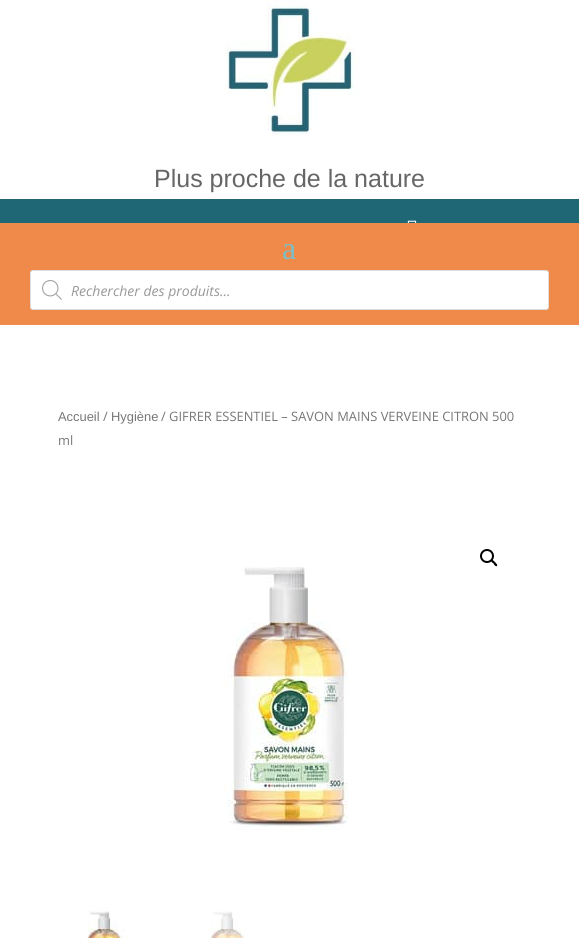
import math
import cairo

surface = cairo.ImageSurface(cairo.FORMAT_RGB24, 579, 938)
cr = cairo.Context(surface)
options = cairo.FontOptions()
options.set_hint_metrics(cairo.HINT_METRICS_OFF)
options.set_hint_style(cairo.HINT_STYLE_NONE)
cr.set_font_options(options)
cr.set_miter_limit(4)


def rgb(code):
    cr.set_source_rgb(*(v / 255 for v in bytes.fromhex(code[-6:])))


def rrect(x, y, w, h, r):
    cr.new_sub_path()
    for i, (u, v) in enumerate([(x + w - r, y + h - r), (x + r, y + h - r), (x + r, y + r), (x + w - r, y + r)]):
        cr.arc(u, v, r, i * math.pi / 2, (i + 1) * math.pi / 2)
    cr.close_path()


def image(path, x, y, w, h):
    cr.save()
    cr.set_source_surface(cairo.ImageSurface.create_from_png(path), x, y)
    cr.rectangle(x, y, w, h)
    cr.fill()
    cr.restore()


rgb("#ffffff")
cr.paint()
image("img/1.png", 225, 0, 133, 136)
rgb("#1f6775")
cr.rectangle(0, 199, 579, 24)
cr.fill()
image("img/2.png", 407, 220, 10, 3)
rgb("#f08a4a")
cr.rectangle(0, 223, 579, 102)
cr.fill()
rgb("#ffffff")
rrect(30.5, 270.5, 518, 39, 2.5)
cr.fill_preserve()
rgb("#dddddd")
cr.set_line_width(1)
cr.stroke()
image("img/3.png", 42, 280, 20, 20)
cr.arc(487, 556, 6, 0, 2 * math.pi)
rgb("#000000")
cr.set_line_width(2)
cr.stroke()
cr.new_path()
cr.move_to(491.5, 560)
cr.curve_to(492.5, 559, 494, 561.5, 495, 562)
cr.curve_to(495.5, 563, 498, 564.5, 497, 566)
cr.curve_to(495.5, 567, 494, 564.5, 493.5, 563.5)
cr.curve_to(493, 563, 490, 561.5, 491.5, 560)
cr.close_path()
cr.fill()
image("img/4.png", 222, 566, 126, 264)
image("img/5.png", 87, 907, 43, 31)
image("img/6.png", 210, 911, 42, 27)
cr.select_font_face("Liberation Sans")
cr.set_font_size(25)
rgb("#666666")
cr.move_to(154, 187)
cr.show_text("Plus proche de la nature")
cr.select_font_face("Liberation Serif")
cr.set_font_size(32)
rgb("#7ebec5")
cr.move_to(282, 259)
cr.show_text("a")
cr.select_font_face("Open Sans", cairo.FONT_SLANT_ITALIC)
cr.set_font_size(14)
rgb("#999999")
cr.move_to(71, 296)
cr.show_text("Rechercher des produits...")
cr.select_font_face("Liberation Sans")
cr.set_font_size(12.9)
rgb("#767676")
cr.move_to(58, 421)
cr.show_text("Accueil")
cr.select_font_face("Open Sans")
cr.move_to(103, 421)
cr.show_text("/")
cr.select_font_face("Liberation Sans")
cr.move_to(111, 421)
cr.show_text("Hygiène")
cr.select_font_face("Open Sans")
cr.move_to(161, 421)
cr.show_text("/ GIFRER ESSENTIEL – SAVON MAINS VERVEINE CITRON 500")
cr.move_to(58, 445)
cr.show_text("ml")
surface.write_to_png("page.png")
